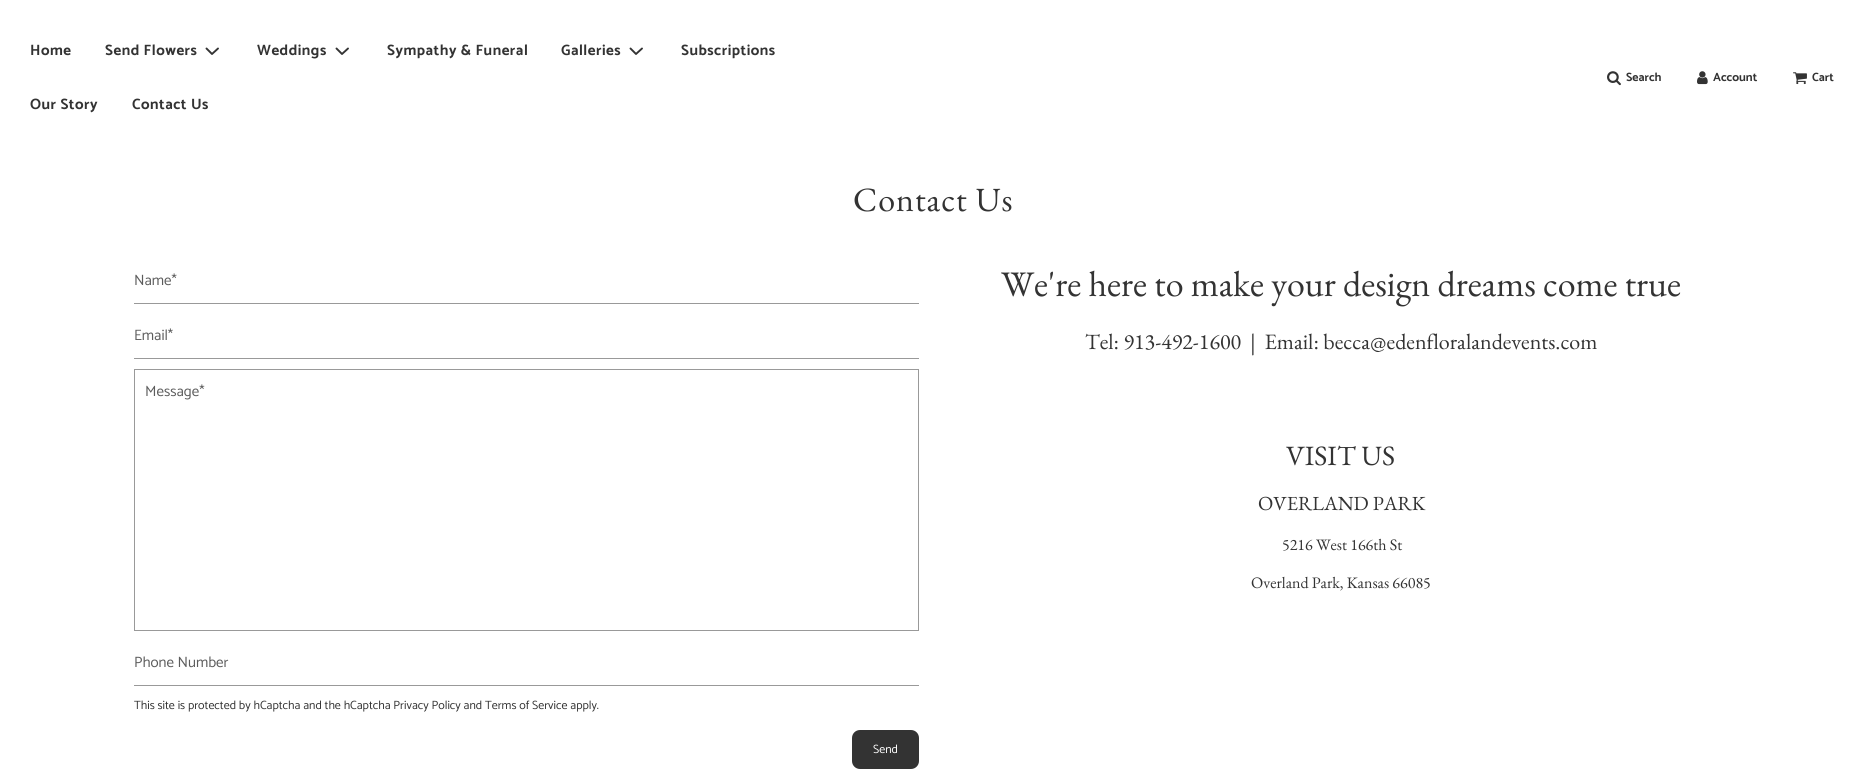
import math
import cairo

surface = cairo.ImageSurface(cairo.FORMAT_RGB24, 1867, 772)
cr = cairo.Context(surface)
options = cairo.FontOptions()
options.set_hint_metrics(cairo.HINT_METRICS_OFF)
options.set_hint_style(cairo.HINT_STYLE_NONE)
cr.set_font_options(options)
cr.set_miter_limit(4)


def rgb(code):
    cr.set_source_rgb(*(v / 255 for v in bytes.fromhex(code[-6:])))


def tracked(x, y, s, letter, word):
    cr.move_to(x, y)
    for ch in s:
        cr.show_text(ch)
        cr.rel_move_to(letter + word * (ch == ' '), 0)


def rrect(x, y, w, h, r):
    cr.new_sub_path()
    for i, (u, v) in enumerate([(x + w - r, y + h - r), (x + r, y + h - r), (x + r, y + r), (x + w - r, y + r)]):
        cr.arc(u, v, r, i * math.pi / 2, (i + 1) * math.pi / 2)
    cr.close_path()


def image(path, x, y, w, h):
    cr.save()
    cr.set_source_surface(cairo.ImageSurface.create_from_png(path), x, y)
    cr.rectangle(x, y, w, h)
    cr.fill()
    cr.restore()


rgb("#ffffff")
cr.paint()
cr.new_path()
cr.move_to(206.5, 48.5)
cr.line_to(212, 54)
cr.line_to(218, 48.5)
rgb("#333333")
cr.set_line_width(1.9)
cr.set_line_cap(cairo.LINE_CAP_ROUND)
cr.set_line_join(cairo.LINE_JOIN_ROUND)
cr.stroke()
cr.new_path()
cr.move_to(336.5, 48.5)
cr.line_to(342, 54)
cr.line_to(348, 48.5)
cr.stroke()
cr.new_path()
cr.move_to(630.5, 48.5)
cr.line_to(636, 54)
cr.line_to(642, 48.5)
cr.stroke()
image("img/1.png", 1607, 71, 14, 15)
image("img/2.png", 1697, 71, 11, 14)
image("img/3.png", 1793, 72, 14, 13)
rgb("#999999")
cr.rectangle(134, 303, 785, 1)
cr.fill()
cr.rectangle(134, 358, 785, 1)
cr.fill()
cr.rectangle(134.5, 369.5, 784, 261)
cr.set_line_width(1)
cr.set_line_cap(cairo.LINE_CAP_BUTT)
cr.set_line_join(cairo.LINE_JOIN_MITER)
cr.stroke()
cr.rectangle(134, 685, 785, 1)
cr.fill()
rgb("#333333")
rrect(852, 730, 67, 39, 8)
cr.fill()
image("img/4.png", 1323, 333, 274, 19)
cr.select_font_face("Catamaran", cairo.FONT_SLANT_NORMAL, cairo.FONT_WEIGHT_BOLD)
cr.set_font_size(15)
for x, y, s in [
    (30, 55, "Home"),
    (105, 55, "Send Flowers"),
    (257, 55, "Weddings"),
    (387, 55, "Sympathy & Funeral"),
    (561, 55, "Galleries"),
    (681, 55, "Subscriptions"),
    (30, 109, "Our Story"),
    (132, 109, "Contact Us"),
]:
    tracked(x, y, s, 0.5, 0)
cr.set_font_size(12)
for x, y, s in [
    (1626, 81, "Search"),
    (1713, 81, "Account"),
    (1812, 81, "Cart"),
]:
    cr.move_to(x, y)
    cr.show_text(s)
cr.select_font_face("EB Garamond")
cr.set_font_size(34)
tracked(853, 211, "Contact Us", 1, 0)
cr.select_font_face("Catamaran")
cr.set_font_size(15)
rgb("#5c5c5c")
for x, y, s in [
    (134, 285, "Name*"),
    (134, 340, "Email*"),
    (145, 396, "Message*"),
    (134, 667, "Phone Number"),
]:
    cr.move_to(x, y)
    cr.show_text(s)
cr.set_font_size(12)
rgb("#333333")
cr.move_to(134, 709)
cr.show_text("This site is protected by hCaptcha and the hCaptcha Privacy Policy and Terms of Service apply.")
rgb("#ffffff")
cr.move_to(873, 753)
cr.show_text("Send")
cr.select_font_face("EB Garamond")
cr.set_font_size(36)
rgb("#333333")
cr.move_to(1001, 296)
cr.show_text("We're here to make your design dreams come true")
cr.set_font_size(22)
cr.move_to(1085, 349)
cr.show_text("Tel: 913-492-1600  |  Email:")
cr.set_font_size(28)
cr.move_to(1286, 465)
cr.show_text("VISIT US")
cr.set_font_size(20)
cr.move_to(1258, 510)
cr.show_text("OVERLAND PARK")
cr.set_font_size(16)
cr.move_to(1282, 550)
cr.show_text("5216 West 166th St")
cr.move_to(1251, 588)
cr.show_text("Overland Park, Kansas 66085")
surface.write_to_png("page.png")
